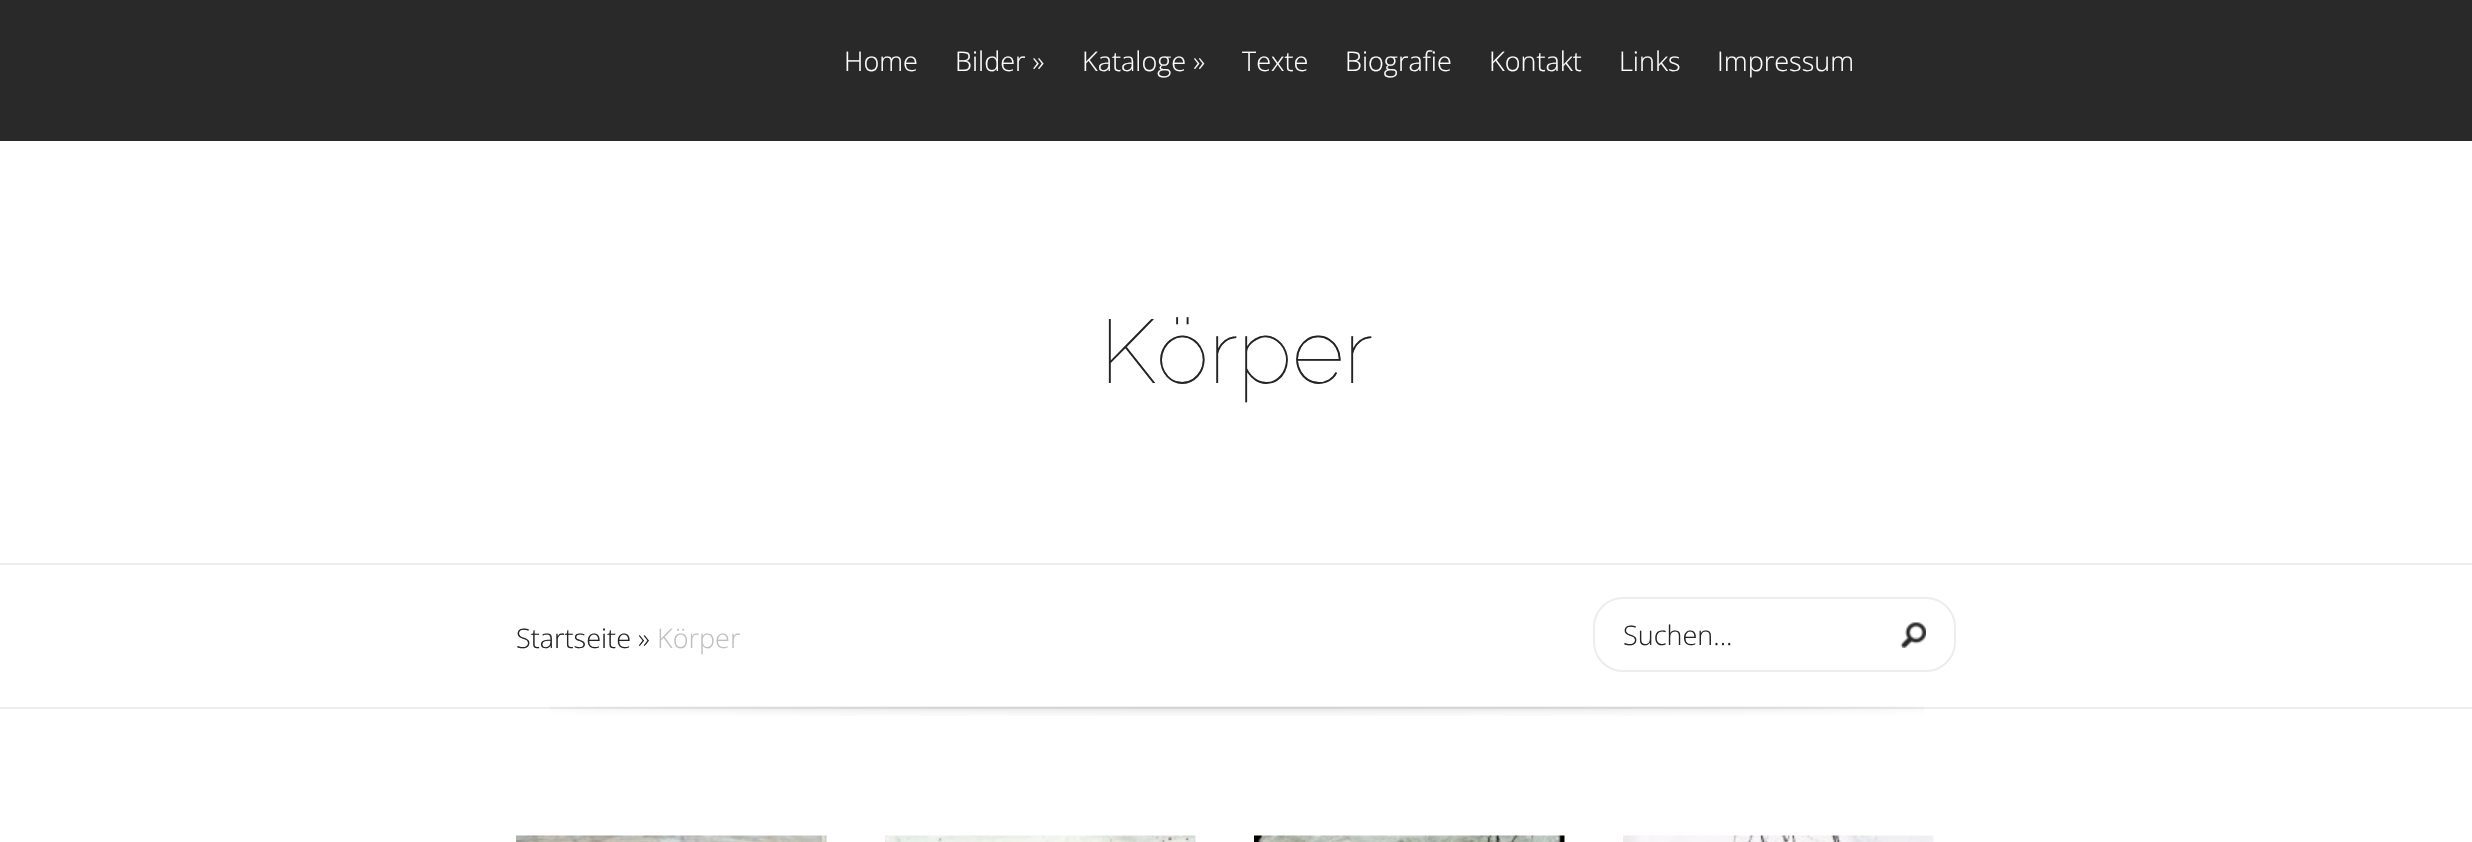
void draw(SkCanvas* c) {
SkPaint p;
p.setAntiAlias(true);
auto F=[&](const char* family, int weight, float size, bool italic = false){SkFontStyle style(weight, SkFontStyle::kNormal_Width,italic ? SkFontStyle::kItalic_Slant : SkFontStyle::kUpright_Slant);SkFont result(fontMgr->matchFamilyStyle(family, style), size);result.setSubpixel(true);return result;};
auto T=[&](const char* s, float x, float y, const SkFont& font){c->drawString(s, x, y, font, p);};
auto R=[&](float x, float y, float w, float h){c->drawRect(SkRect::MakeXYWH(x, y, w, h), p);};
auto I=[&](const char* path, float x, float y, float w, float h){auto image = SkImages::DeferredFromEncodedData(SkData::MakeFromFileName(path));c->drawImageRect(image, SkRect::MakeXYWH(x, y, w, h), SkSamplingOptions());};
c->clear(0xffffffff);
p.setColor(0xff292929);
R(0,0,2472,141);
auto f1 = F("Open Sans",300,27);
p.setColor(0xffffffff);
T("Home",844,71,f1);
T("Bilder »",955,71,f1);
T("Kataloge »",1082,71,f1);
T("Texte",1242,71,f1);
T("Biografie",1345,71,f1);
T("Kontakt",1489,71,f1);
T("Links",1619,71,f1);
T("Impressum",1717,71,f1);
auto f2 = F("Raleway",100,90);
p.setColor(0xff242424);
T("Körper",1100,383,f2);
p.setColor(0xffededed);
R(0,563,2472,2);
R(0,707,2472,2);
p.setColor(0xff242424);
T("Startseite »",516,648,f1);
p.setColor(0xffbfbfbf);
T("Körper",657,648,f1);
p.setStroke(true);
p.setStrokeWidth(2);
p.setColor(0xffededed);
c->drawRoundRect(SkRect::MakeXYWH(1594,598,361,73),29,29,p);
p.setStroke(false);
p.setColor(0xff242424);
T("Suchen...",1623,645,f1);
I("1.png",1900,622,26,26);
I("2.png",550,706,1374,10);
I("3.png",516,835,311,7);
I("4.png",885,835,311,7);
I("5.png",1254,835,311,7);
I("6.png",1623,835,311,7);
}
